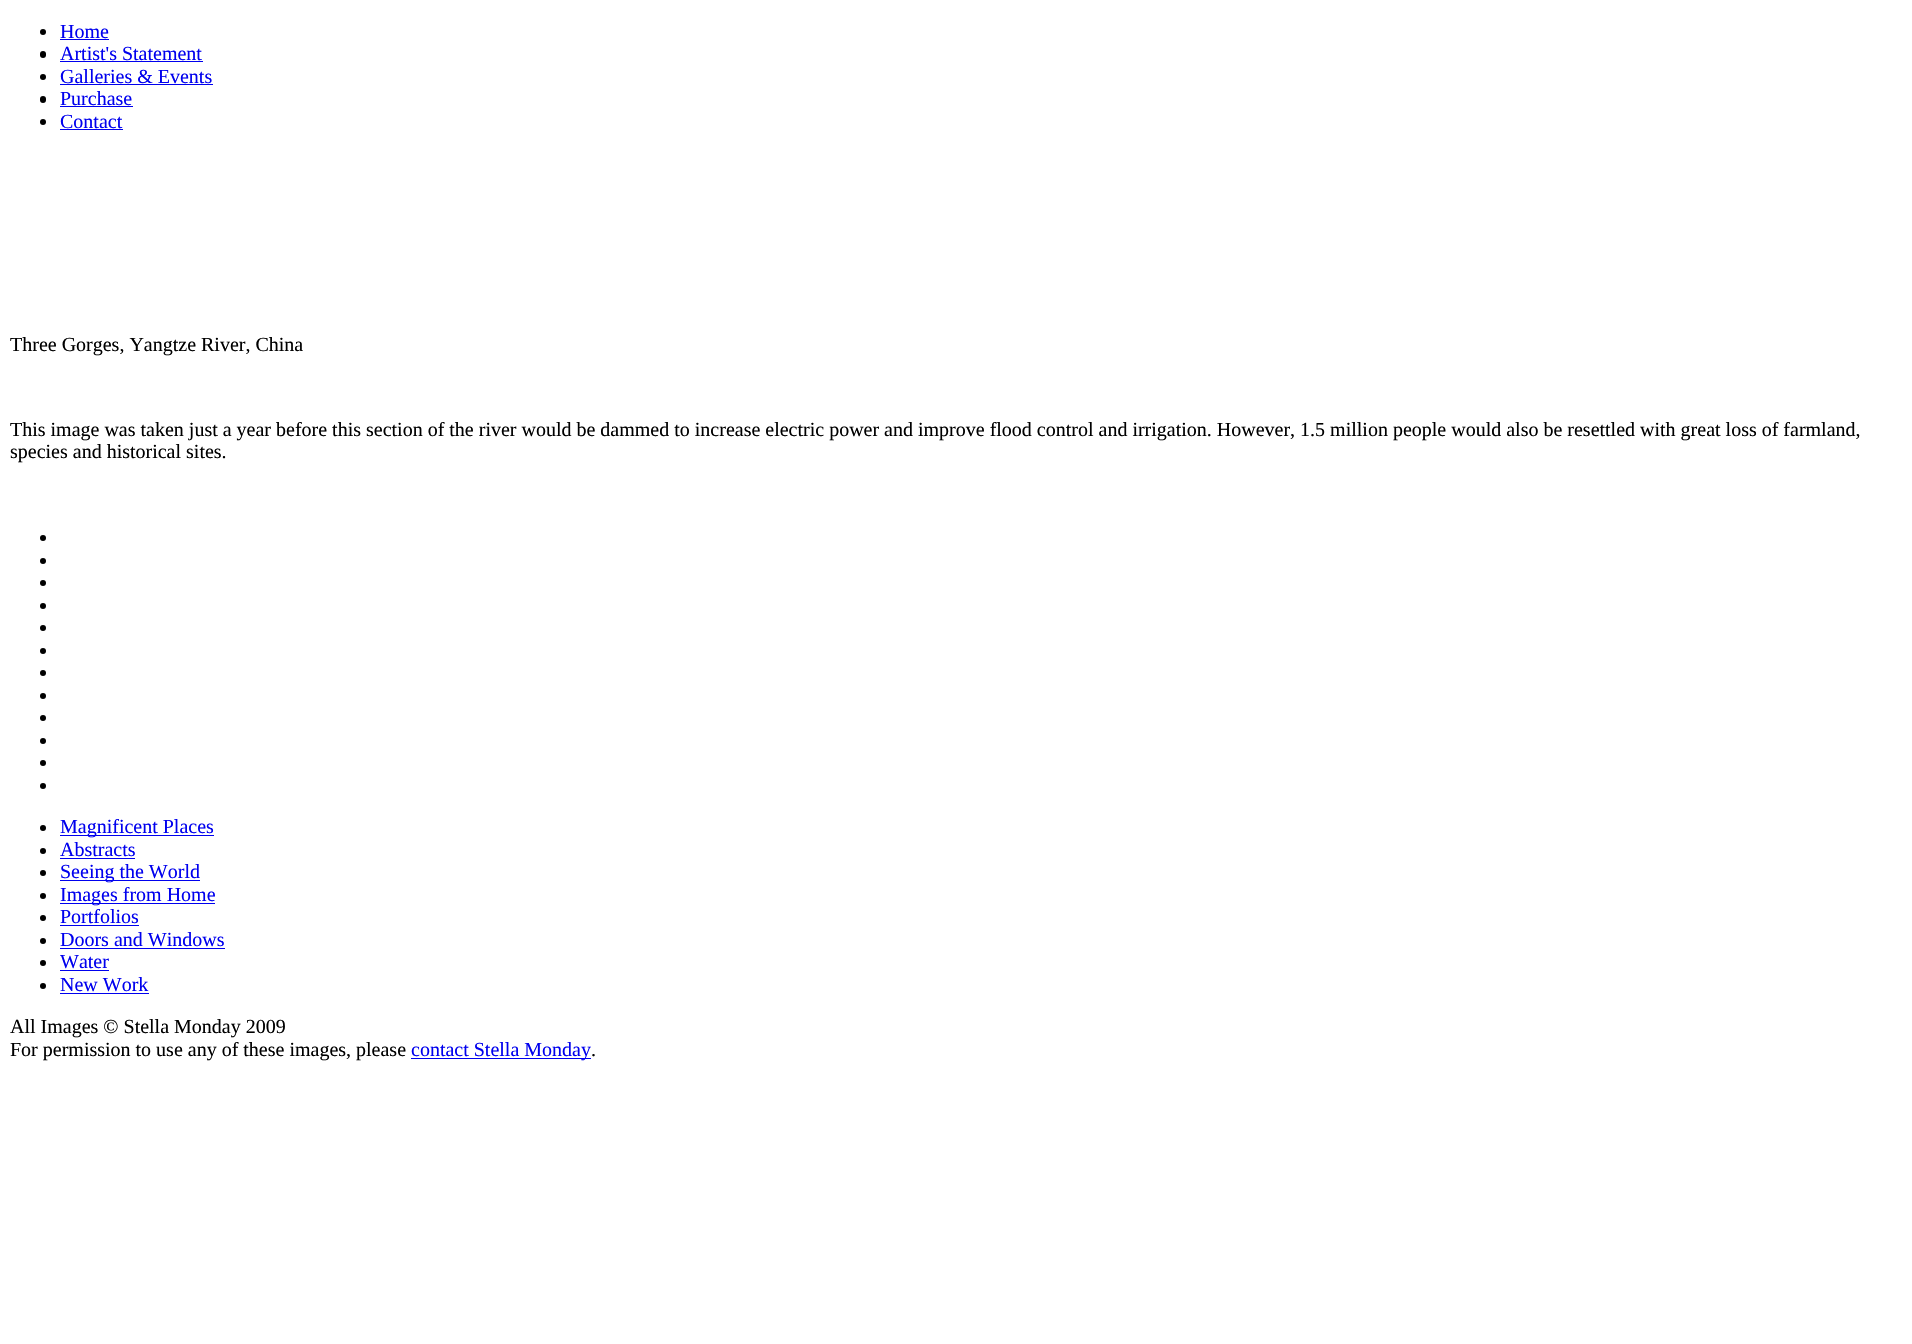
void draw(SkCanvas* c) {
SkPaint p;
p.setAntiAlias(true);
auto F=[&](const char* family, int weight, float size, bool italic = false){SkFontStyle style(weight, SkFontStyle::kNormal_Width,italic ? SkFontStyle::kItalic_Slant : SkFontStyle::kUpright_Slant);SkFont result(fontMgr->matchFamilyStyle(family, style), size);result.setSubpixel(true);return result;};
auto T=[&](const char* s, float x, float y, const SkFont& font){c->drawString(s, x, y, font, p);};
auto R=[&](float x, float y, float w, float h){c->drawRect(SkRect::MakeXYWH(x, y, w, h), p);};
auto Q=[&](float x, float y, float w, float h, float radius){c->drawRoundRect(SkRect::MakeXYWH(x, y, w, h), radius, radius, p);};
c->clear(0xffffffff);
p.setColor(0xff000000);
c->drawCircle(43,32,3,p);
auto f1 = F("Liberation Serif",400,20);
p.setColor(0xff0000ee);
T("Home",60,38,f1);
R(60,39,49,1);
p.setColor(0xff000000);
Q(40,51,6,7,3);
p.setColor(0xff0000ee);
T("Artist's Statement",60,60,f1);
R(60,61,143,1);
p.setColor(0xff000000);
c->drawCircle(43,77,3,p);
p.setColor(0xff0000ee);
T("Galleries & Events",60,83,f1);
R(60,84,153,1);
p.setColor(0xff000000);
Q(40,96,6,7,3);
p.setColor(0xff0000ee);
T("Purchase",60,105,f1);
R(60,106,73,1);
p.setColor(0xff000000);
c->drawCircle(43,122,3,p);
p.setColor(0xff0000ee);
T("Contact",60,128,f1);
R(60,129,63,1);
p.setColor(0xff000000);
T("Three Gorges, Yangtze River, China",10,351,f1);
T("This image was taken just a year before this section of the river would be dammed to increase electric power and improve flood control and irrigation. However, 1.5 million people would also be resettled with great loss of farmland,",10,436,f1);
T("species and historical sites.",10,458,f1);
c->drawCircle(43,538,3,p);
c->drawCircle(43,561,3,p);
c->drawCircle(43,583,3,p);
c->drawCircle(43,606,3,p);
c->drawCircle(43,628,3,p);
c->drawCircle(43,651,3,p);
c->drawCircle(43,673,3,p);
c->drawCircle(43,696,3,p);
c->drawCircle(43,718,3,p);
c->drawCircle(43,741,3,p);
c->drawCircle(43,763,3,p);
c->drawCircle(43,786,3,p);
c->drawCircle(43,828,3,p);
p.setColor(0xff0000ee);
R(60,835,154,1);
T("Magnificent Places",60,833,f1);
p.setColor(0xff000000);
c->drawCircle(43,851,3,p);
p.setColor(0xff0000ee);
T("Abstracts",60,856,f1);
R(60,858,75,1);
p.setColor(0xff000000);
c->drawCircle(43,873,3,p);
p.setColor(0xff0000ee);
R(60,880,140,1);
T("Seeing the World",60,878,f1);
p.setColor(0xff000000);
c->drawCircle(43,896,3,p);
p.setColor(0xff0000ee);
R(60,903,155,1);
T("Images from Home",60,901,f1);
p.setColor(0xff000000);
c->drawCircle(43,918,3,p);
p.setColor(0xff0000ee);
T("Portfolios",60,923,f1);
R(60,925,79,1);
p.setColor(0xff000000);
c->drawCircle(43,941,3,p);
p.setColor(0xff0000ee);
T("Doors and Windows",60,946,f1);
R(60,948,165,1);
p.setColor(0xff000000);
c->drawCircle(43,963,3,p);
p.setColor(0xff0000ee);
T("Water",60,968,f1);
R(60,970,49,1);
p.setColor(0xff000000);
c->drawCircle(43,986,3,p);
p.setColor(0xff0000ee);
T("New Work",60,991,f1);
R(60,993,89,1);
p.setColor(0xff000000);
T("All Images © Stella Monday 2009",10,1033,f1);
T("For permission to use any of these images, please",10,1056,f1);
p.setColor(0xff0000ee);
R(411,1058,180,1);
T("contact Stella Monday",411,1056,f1);
p.setColor(0xff000000);
T(".",591,1056,f1);
}
